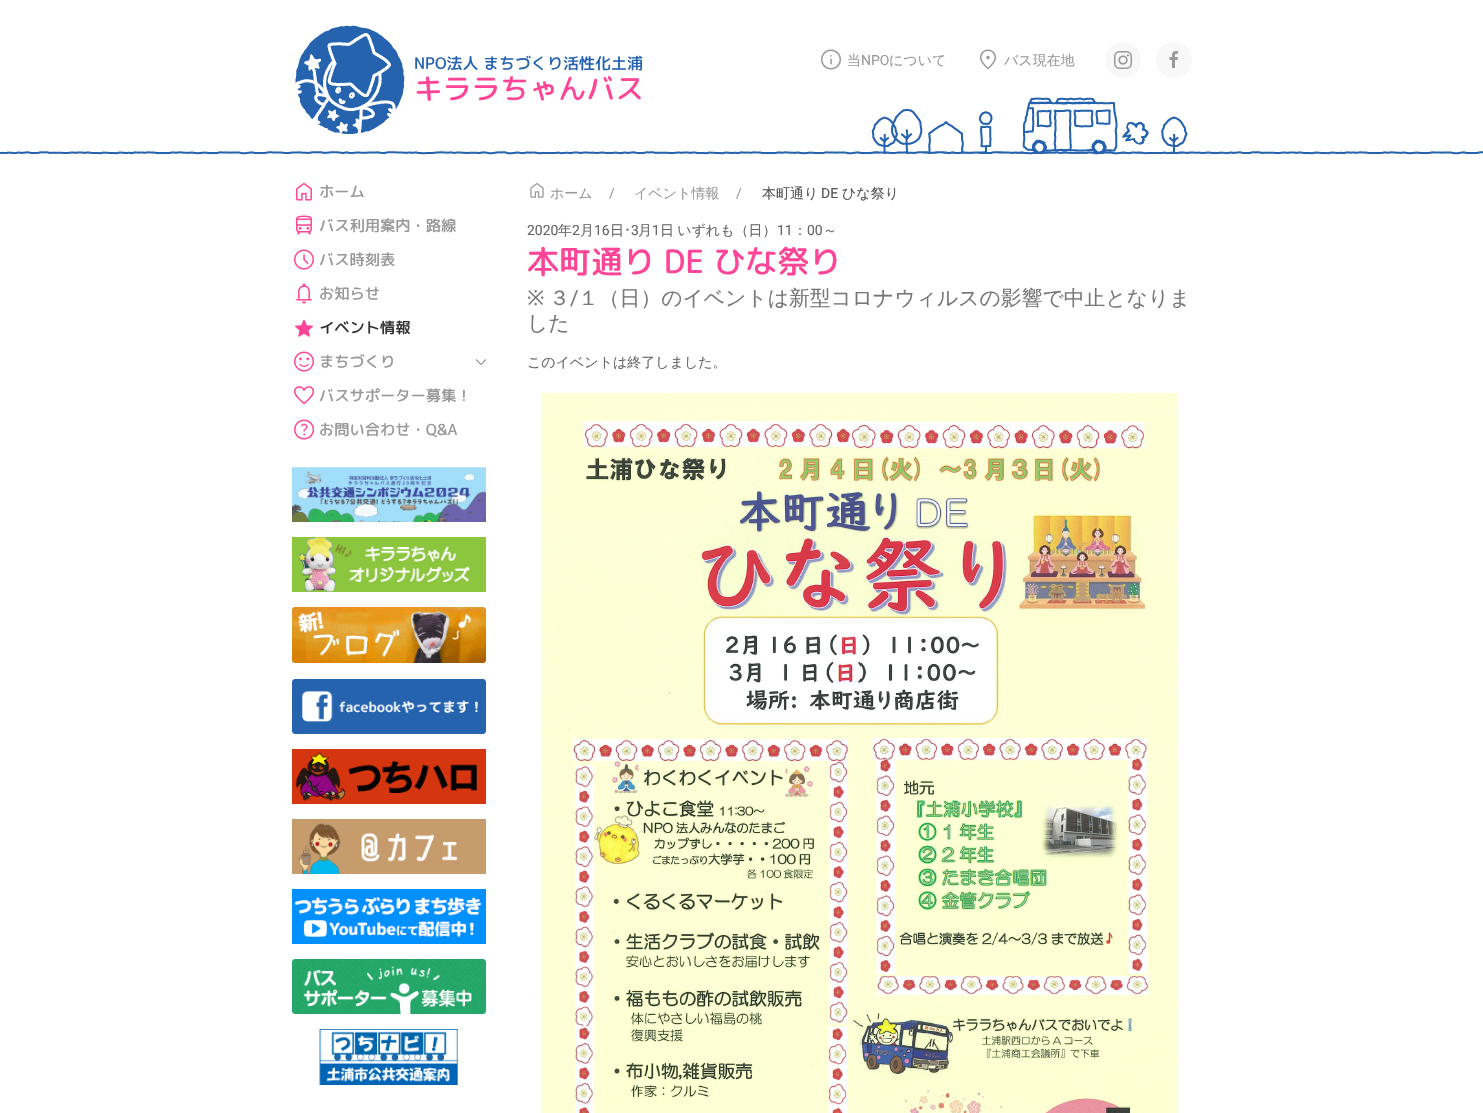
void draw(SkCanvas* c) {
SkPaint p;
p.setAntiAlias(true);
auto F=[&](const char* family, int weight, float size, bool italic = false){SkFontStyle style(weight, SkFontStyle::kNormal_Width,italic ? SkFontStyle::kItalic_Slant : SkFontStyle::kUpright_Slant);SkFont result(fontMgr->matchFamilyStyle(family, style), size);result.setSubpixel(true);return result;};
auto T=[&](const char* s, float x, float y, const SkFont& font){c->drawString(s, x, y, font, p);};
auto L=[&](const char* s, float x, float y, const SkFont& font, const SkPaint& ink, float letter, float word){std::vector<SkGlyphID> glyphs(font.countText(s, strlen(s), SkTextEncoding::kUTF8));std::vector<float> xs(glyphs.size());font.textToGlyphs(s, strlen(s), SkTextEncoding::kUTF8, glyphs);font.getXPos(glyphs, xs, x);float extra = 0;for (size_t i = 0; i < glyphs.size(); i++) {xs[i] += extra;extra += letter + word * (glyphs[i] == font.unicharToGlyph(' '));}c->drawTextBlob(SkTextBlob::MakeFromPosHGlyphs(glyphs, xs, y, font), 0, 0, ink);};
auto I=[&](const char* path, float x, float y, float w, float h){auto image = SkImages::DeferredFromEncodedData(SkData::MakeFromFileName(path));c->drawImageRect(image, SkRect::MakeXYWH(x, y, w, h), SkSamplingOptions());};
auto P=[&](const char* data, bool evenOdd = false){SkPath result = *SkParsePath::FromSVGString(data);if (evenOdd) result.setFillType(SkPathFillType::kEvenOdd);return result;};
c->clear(0xffffffff);
I("1.png",0,151,1483,4);
I("2.png",871,97,321,57);
I("3.png",295,25,110,109);
auto f1 = F("Rounded Mplus 1c",500,16);
p.setColor(0xff2563af);
T("NPO法人 まちづくり活性化土浦",414,69,f1);
auto f2 = F("Rounded Mplus 1c",500,28.75);
p.setColor(0xffff4597);
T("キララちゃんバス",414,99,f2);
I("4.png",821,49,20,21);
auto f3 = F("WenQuanYi Zen Hei",500,14);
p.setColor(0xff999999);
T("当",847,65,f3);
auto f4 = F("Roboto",400,14);
T("NPO",861,65,f4);
T("について",889,65,f3);
I("5.png",980,49,16,21);
T("バス現在地",1004,65,f3);
p.setColor(0xfff8f8f8);
c->drawCircle(1123,60,18,p);
I("6.png",1114,51,18,18);
c->drawCircle(1174,60,18,p);
I("7.png",1169,51,9,17);
I("8.png",295,182,17,19);
auto f5 = F("Rounded Mplus 1c",500,15.25);
p.setColor(0xff999999);
T("ホーム",319,197,f5);
I("9.png",295,215,17,20);
T("バス利用案内・路線",319,231,f5);
I("10.png",294,249,20,21);
T("バス時刻表",319,265,f5);
I("11.png",296,283,16,21);
T("お知らせ",319,299,f5);
I("12.png",295,319,18,18);
p.setColor(0xff333333);
T("イベント情報",319,333,f5);
I("13.png",294,351,20,21);
p.setColor(0xff999999);
T("まちづくり",319,367,f5);
p.setStroke(true);
p.setStrokeWidth(1.1);
c->drawPath(P("M476 359.5l5 5l5-5"),p);
I("14.png",294,386,21,18);
p.setStroke(false);
T("バスサポーター募集！",319,401,f5);
I("15.png",294,419,21,21);
T("お問い合わせ・Q&A",319,435,f5);
I("16.png",292,467,194,55);
I("17.png",292,537,194,55);
I("18.png",292,607,194,56);
I("19.png",292,679,194,55);
I("20.png",292,749,194,55);
I("21.png",292,819,194,55);
I("22.png",292,889,194,55);
I("23.png",292,959,194,55);
I("24.png",319,1029,139,56);
I("25.png",530,183,14,15);
T("ホーム",550,198,f3);
T("/",609,198,f4);
T("イベント情報",634,198,f3);
T("/",736,198,f4);
p.setColor(0xff555555);
T("本町通り",762,198,f3);
T("DE",821,198,f4);
T("ひな祭り",842,198,f3);
p.setColor(0xff666666);
T("2020",527,235,f4);
T("年",558,235,f3);
T("2",572,235,f4);
T("月",580,235,f3);
T("16",594,235,f4);
T("日",610,235,f3);
auto f6 = F("IPAGothic",400,14);
T("･",624,235,f6);
T("3",631,235,f4);
T("月",638,235,f3);
T("1",652,235,f4);
L("日 いずれも（日）",660,235,f3,p,0,-1);
T("11",777,235,f4);
T("：",793,235,f3);
T("00",807,235,f4);
T("～",823,235,f3);
auto f7 = F("Rounded Mplus 1c",500,32);
p.setColor(0xffff4597);
T("本町通り DE ひな祭り",527,273,f7);
auto f8 = F("Noto Sans",400,20.8);
p.setColor(0xff777777);
T("※",527,305,f8);
auto f9 = F("WenQuanYi Zen Hei",500,20.8);
T("３",549,305,f9);
auto f10 = F("Roboto",400,20.8);
T("/",570,305,f10);
T("１（日）のイベントは新型コロナウィルスの影響で中止となりま",578,305,f9);
T("した",527,330,f9);
p.setColor(0xff666666);
T("このイベントは終了しました。",527,367,f3);
I("26.png",541,393,637,720);
}
